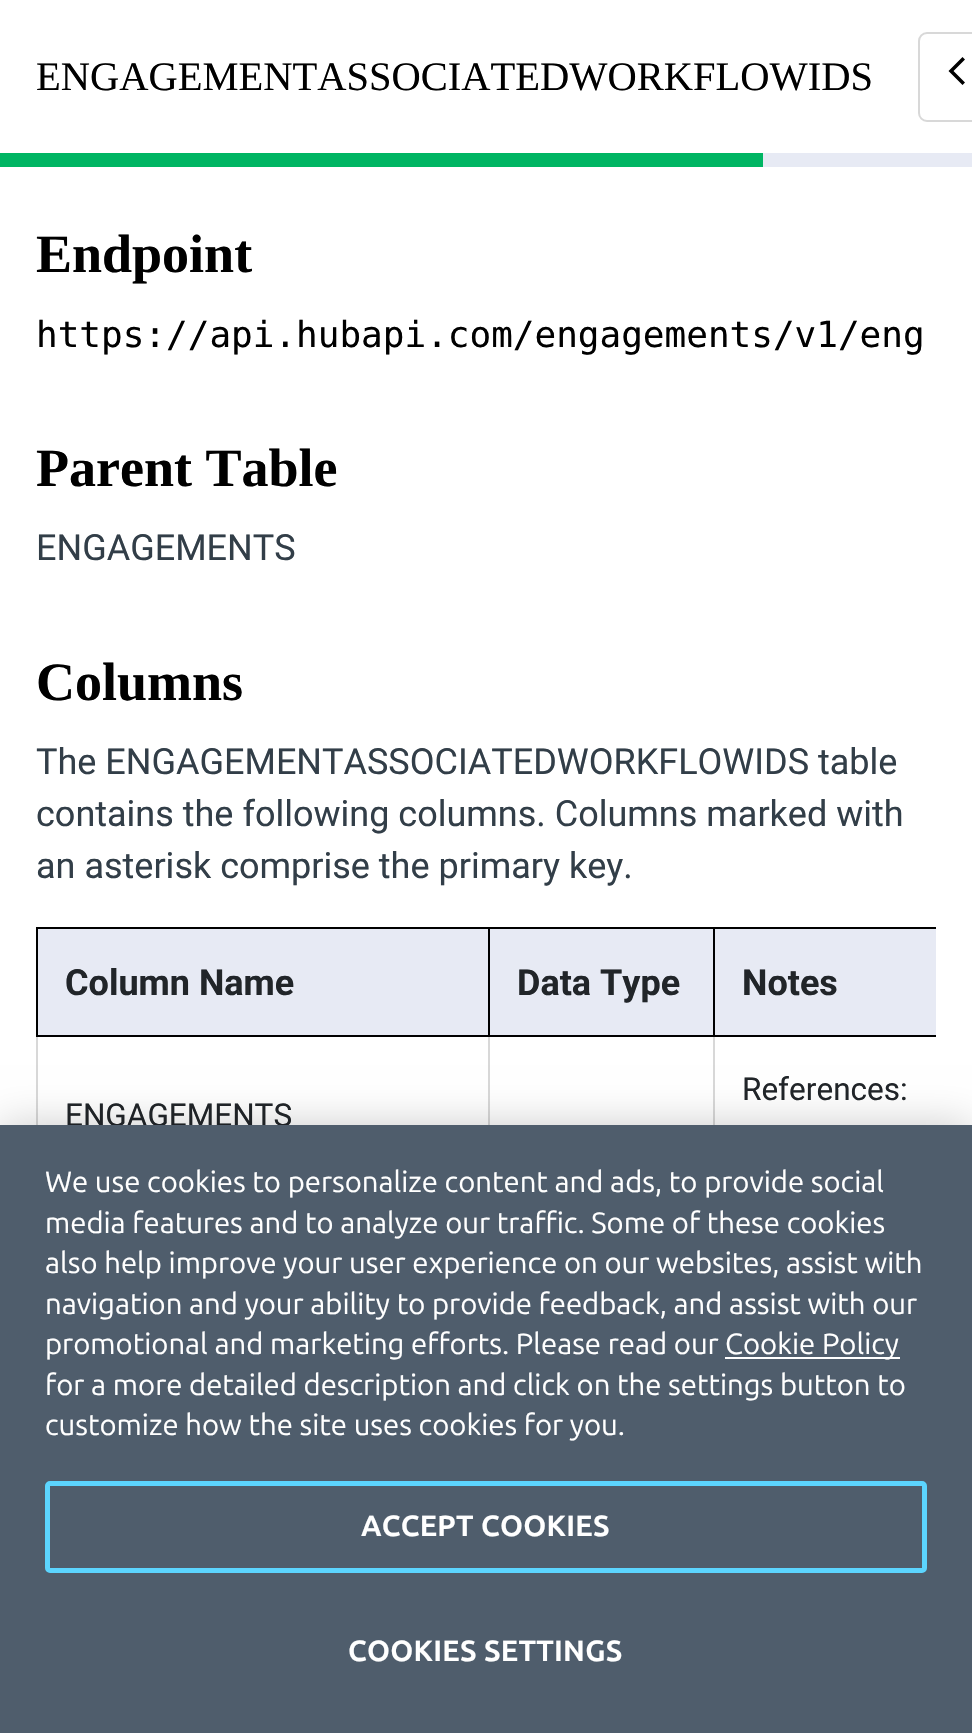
void draw(SkCanvas* c) {
SkPaint p;
p.setAntiAlias(true);
auto F=[&](const char* family, int weight, float size, bool italic = false){SkFontStyle style(weight, SkFontStyle::kNormal_Width,italic ? SkFontStyle::kItalic_Slant : SkFontStyle::kUpright_Slant);SkFont result(fontMgr->matchFamilyStyle(family, style), size);result.setSubpixel(true);return result;};
auto T=[&](const char* s, float x, float y, const SkFont& font){c->drawString(s, x, y, font, p);};
auto L=[&](const char* s, float x, float y, const SkFont& font, const SkPaint& ink, float letter, float word){std::vector<SkGlyphID> glyphs(font.countText(s, strlen(s), SkTextEncoding::kUTF8));std::vector<float> xs(glyphs.size());font.textToGlyphs(s, strlen(s), SkTextEncoding::kUTF8, glyphs);font.getXPos(glyphs, xs, x);float extra = 0;for (size_t i = 0; i < glyphs.size(); i++) {xs[i] += extra;extra += letter + word * (glyphs[i] == font.unicharToGlyph(' '));}c->drawTextBlob(SkTextBlob::MakeFromPosHGlyphs(glyphs, xs, y, font), 0, 0, ink);};
auto R=[&](float x, float y, float w, float h){c->drawRect(SkRect::MakeXYWH(x, y, w, h), p);};
auto P=[&](const char* data, bool evenOdd = false){SkPath result = *SkParsePath::FromSVGString(data);if (evenOdd) result.setFillType(SkPathFillType::kEvenOdd);return result;};
c->clear(0xffffffff);
auto f1 = F("Liberation Serif",400,40.5);
p.setColor(0xff000000);
T("ENGAGEMENTASSOCIATEDWORKFLOWIDS",36,90,f1);
p.setStroke(true);
p.setStrokeWidth(2);
p.setColor(0xffd8d8d8);
c->drawRoundRect(SkRect::MakeXYWH(919,33,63,88),8,8,p);
p.setStroke(false);
p.setColor(0xff000000);
c->drawPath(P("M965 59.5l-2.5-2.5l-14 14l14 14l2.5-2.5l-11.5-11.5z"),p);
p.setColor(0xff00b563);
R(0,153,763,14);
p.setColor(0xffe7eaf4);
R(763,153,209,14);
auto f2 = F("Liberation Serif",700,54);
p.setColor(0xff000000);
T("Endpoint",36,272,f2);
auto f3 = F("DejaVu Sans Mono",400,36);
T("https://api.hubapi.com/engagements/v1/eng",36,347,f3);
T("Parent Table",36,486,f2);
auto f4 = F("Roboto",400,36);
p.setColor(0xff323e48);
T("ENGAGEMENTS",36,560,f4);
p.setColor(0xff000000);
T("Columns",36,700,f2);
p.setColor(0xff323e48);
T("The ENGAGEMENTASSOCIATEDWORKFLOWIDS table",36,774,f4);
T("contains the following columns. Columns marked with",36,826,f4);
T("an asterisk comprise the primary key.",36,878,f4);
p.setColor(0xffe7eaf4);
R(38,929,898,106);
p.setColor(0xff000000);
R(713,927,223,2);
p.setColor(0xffd8d8d8);
R(713,1035,2,90);
p.setColor(0xff000000);
R(713,1035,223,2);
R(713,927,2,110);
R(488,927,228,2);
p.setColor(0xffd8d8d8);
R(488,1035,2,90);
p.setColor(0xff000000);
R(488,1035,228,2);
R(488,927,2,110);
R(36,927,455,2);
p.setColor(0xffd8d8d8);
R(36,1035,2,90);
p.setColor(0xff000000);
R(36,1035,455,2);
R(36,927,2,110);
auto f5 = F("Roboto",700,36);
p.setColor(0xff212529);
T("Column Name",65,995,f5);
T("Data Type",517,995,f5);
T("Notes",742,995,f5);
auto f6 = F("Roboto",400,31.5);
T("References:",742,1100,f6);
T("ENGAGEMENTS",65,1126,f6);
p.setColor(0x33000000);
p.setMaskFilter(SkMaskFilter::MakeBlur(kNormal_SkBlurStyle, 20));
c->drawRect(SkRect::MakeXYWH(0,1125,972,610),p);
p.setMaskFilter(nullptr);
p.setColor(0xff4f5d6c);
R(0,1125,972,608);
auto f7 = F("Ubuntu",400,29.25);
p.setColor(0xffffffff);
T("We use cookies to personalize content and ads, to provide social",45,1192,f7);
T("media features and to analyze our traffic. Some of these cookies",45,1233,f7);
T("also help improve your user experience on our websites, assist with",45,1273,f7);
T("navigation and your ability to provide feedback, and assist with our",45,1314,f7);
T("promotional and marketing efforts. Please read our",45,1354,f7);
R(725,1357,175,2);
T("Cookie Policy",725,1354,f7);
T("for a more detailed description and click on the settings button to",45,1395,f7);
T("customize how the site uses cookies for you.",45,1435,f7);
p.setStroke(true);
p.setStrokeWidth(5);
p.setColor(0xff5cd5ff);
c->drawRoundRect(SkRect::MakeXYWH(47.5,1483.5,877,87),2.5,2.5,p);
auto f8 = F("Ubuntu",700,29.25);
p.setStroke(false);
p.setColor(0xffffffff);
L("ACCEPT COOKIES",361,1536,f8,p,.25,0);
L("COOKIES SETTINGS",348,1661,f8,p,.25,0);
}
